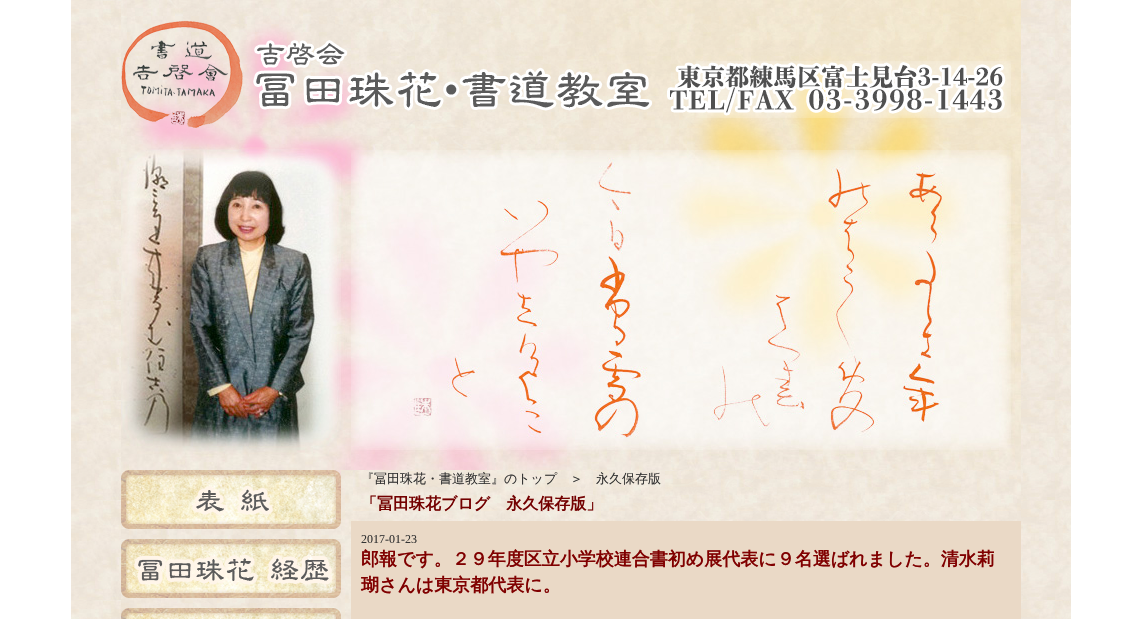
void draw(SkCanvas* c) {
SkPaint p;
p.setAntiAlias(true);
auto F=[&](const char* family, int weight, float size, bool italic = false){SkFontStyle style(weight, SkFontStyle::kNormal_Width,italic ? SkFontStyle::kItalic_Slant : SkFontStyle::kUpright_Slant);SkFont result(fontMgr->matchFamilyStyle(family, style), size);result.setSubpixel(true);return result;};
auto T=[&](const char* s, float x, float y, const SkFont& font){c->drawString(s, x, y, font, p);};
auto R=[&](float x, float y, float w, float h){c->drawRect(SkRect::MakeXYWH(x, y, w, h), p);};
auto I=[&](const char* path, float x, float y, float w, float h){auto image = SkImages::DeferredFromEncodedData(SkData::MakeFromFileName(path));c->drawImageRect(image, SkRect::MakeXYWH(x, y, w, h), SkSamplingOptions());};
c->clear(0xffffffff);
I("1.png",71,0,1000,619);
I("2.png",121,0,535,150);
I("3.png",656,0,365,150);
I("4.png",121,150,230,320);
I("5.png",351,150,670,320);
I("6.png",121,470,900,149);
I("7.png",121,470,220,59);
I("8.png",121,539,220,59);
I("9.png",121,608,220,11);
auto f1 = F("WenQuanYi Zen Hei",500,13);
p.setColor(0xff333333);
T("『冨田珠花・書道教室』のトップ",361,483,f1);
T("＞　永久保存版",570,483,f1);
auto f2 = F("WenQuanYi Zen Hei",700,16);
p.setColor(0xff730000);
T("「冨田珠花ブログ　永久保存版」",361,509,f2);
p.setColor(0xffead9c6);
R(351,521,670,98);
auto f3 = F("Liberation Serif",400,12);
p.setColor(0xff333333);
T("2017-01-23",361,543,f3);
auto f4 = F("WenQuanYi Zen Hei",700,18);
p.setColor(0xff800000);
T("郎報です。２９年度区立小学校連合書初め展代表に９名選ばれました。清水莉",361,565,f4);
T("瑚さんは東京都代表に。",361,591,f4);
}
